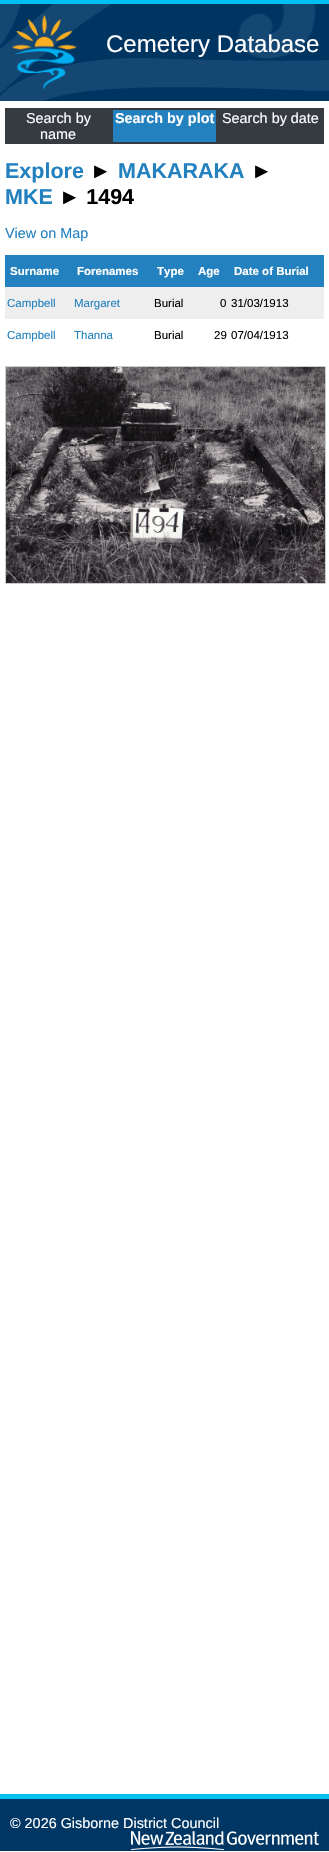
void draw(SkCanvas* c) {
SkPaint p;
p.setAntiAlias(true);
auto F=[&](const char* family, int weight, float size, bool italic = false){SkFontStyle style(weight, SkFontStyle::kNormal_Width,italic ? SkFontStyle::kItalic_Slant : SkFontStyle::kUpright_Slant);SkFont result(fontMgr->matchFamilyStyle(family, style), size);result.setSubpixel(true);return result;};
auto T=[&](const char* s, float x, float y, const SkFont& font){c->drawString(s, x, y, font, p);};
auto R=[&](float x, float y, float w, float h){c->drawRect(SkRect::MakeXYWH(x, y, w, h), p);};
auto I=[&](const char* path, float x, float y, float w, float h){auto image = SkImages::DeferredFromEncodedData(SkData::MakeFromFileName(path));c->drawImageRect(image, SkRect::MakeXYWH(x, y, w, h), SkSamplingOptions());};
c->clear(0xffffffff);
I("1.png",0,4,329,97);
p.setColor(0xff00c0f3);
R(0,0,329,4);
I("2.png",12,15,65,75);
auto f1 = F("Liberation Sans",400,24);
p.setColor(0xffffffff);
T("Cemetery Database",106,52,f1);
p.setColor(0xff353b41);
R(5,108,319,36);
auto f2 = F("Liberation Sans",400,14.4);
p.setColor(0xffffffff);
T("Search by",26,123,f2);
T("name",40,139,f2);
p.setColor(0xff2281be);
R(113,110,103,32);
auto f3 = F("Liberation Sans",700,14.4);
p.setColor(0xffffffff);
T("Search by plot",115,123,f3);
T("Search by date",222,123,f2);
auto f4 = F("Liberation Sans",700,21.5);
p.setColor(0xff2281be);
T("Explore",5,178,f4);
p.setColor(0xff000000);
T("►",90,178,f4);
p.setColor(0xff2281be);
T("MAKARAKA",118,178,f4);
p.setColor(0xff000000);
T("►",251,178,f4);
p.setColor(0xff2281be);
T("MKE",5,204,f4);
p.setColor(0xff000000);
T("► 1494",59,204,f4);
p.setColor(0xff2281be);
T("View on Map",5,238,f2);
R(5,255,319,32);
auto f5 = F("Liberation Sans",700,11.5);
p.setColor(0xffffffff);
T("Surname",10,275,f5);
T("Forenames",77,275,f5);
T("Type",157,275,f5);
T("Age",198,275,f5);
T("Date of Burial",234,275,f5);
p.setColor(0xffeeeeee);
R(5,287,319,32);
auto f6 = F("Liberation Sans",400,11.5);
p.setColor(0xff2281be);
T("Campbell",7,307,f6);
T("Margaret",74,307,f6);
p.setColor(0xff000000);
T("Burial",154,307,f6);
T("0",220,307,f6);
T("31/03/1913",231,307,f6);
p.setColor(0xff2281be);
T("Campbell",7,339,f6);
T("Thanna",74,339,f6);
p.setColor(0xff000000);
T("Burial",154,339,f6);
T("29",214,339,f6);
T("07/04/1913",231,339,f6);
p.setStroke(true);
p.setStrokeWidth(1);
p.setColor(0xffcccccc);
c->drawRect(SkRect::MakeXYWH(5.5,366.5,320,217),p);
I("3.png",6,367,319,216);
p.setStroke(false);
p.setColor(0xff003664);
R(0,1799,329,52);
p.setColor(0xff00c0f3);
R(0,1794,329,5);
p.setColor(0xffffffff);
T("© 2026 Gisborne District Council",10,1828,f2);
I("4.png",131,1831,188,20);
}
